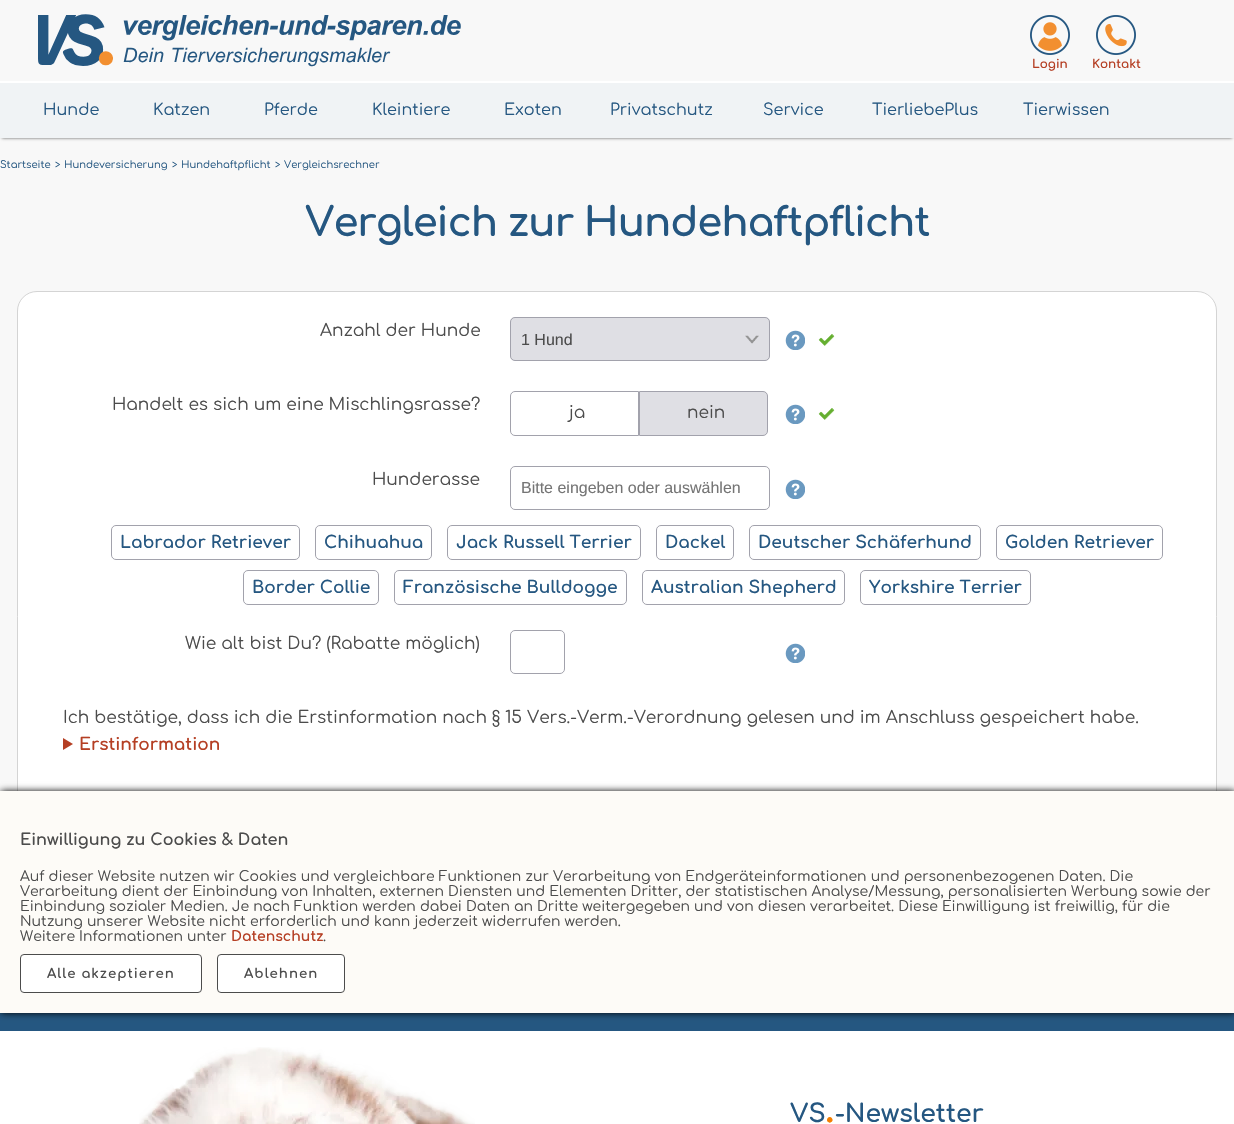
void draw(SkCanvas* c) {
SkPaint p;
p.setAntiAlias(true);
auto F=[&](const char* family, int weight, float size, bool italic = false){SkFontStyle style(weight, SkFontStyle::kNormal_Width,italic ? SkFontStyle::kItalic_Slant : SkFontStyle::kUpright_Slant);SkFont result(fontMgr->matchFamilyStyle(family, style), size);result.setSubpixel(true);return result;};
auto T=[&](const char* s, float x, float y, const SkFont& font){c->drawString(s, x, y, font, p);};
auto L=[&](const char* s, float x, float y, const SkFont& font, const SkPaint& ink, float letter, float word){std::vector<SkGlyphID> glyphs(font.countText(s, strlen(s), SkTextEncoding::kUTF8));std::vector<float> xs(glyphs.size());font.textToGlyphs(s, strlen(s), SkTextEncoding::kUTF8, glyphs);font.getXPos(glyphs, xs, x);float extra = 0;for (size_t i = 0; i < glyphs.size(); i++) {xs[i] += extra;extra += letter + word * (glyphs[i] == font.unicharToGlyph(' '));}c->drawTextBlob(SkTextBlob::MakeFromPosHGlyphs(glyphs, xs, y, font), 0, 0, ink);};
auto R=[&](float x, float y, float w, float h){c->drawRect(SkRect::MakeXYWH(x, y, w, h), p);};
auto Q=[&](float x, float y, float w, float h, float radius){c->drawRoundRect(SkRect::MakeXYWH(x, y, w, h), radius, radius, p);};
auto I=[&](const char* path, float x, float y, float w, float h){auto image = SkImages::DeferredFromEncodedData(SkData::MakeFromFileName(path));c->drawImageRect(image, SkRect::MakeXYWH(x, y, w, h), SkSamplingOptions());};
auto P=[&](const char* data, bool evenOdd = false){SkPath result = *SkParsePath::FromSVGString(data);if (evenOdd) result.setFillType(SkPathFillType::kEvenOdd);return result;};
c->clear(0xfff8f8f8);
I("1.png",38,14,423,53);
I("2.png",1030,15,40,40);
auto f1 = F("Comfortaa",700,12);
p.setColor(0xffb53f24);
T("Login",1032,68,f1);
I("3.png",1096,15,40,40);
T("Kontakt",1092,68,f1);
p.setColor(0xa3000000);
p.setMaskFilter(SkMaskFilter::MakeBlur(kNormal_SkBlurStyle, 1.5));
c->drawRect(SkRect::MakeXYWH(2,85,1230,53),p);
p.setMaskFilter(nullptr);
p.setColor(0xfff0f3f5);
R(0,83,1234,55);
p.setColor(0xffffffff);
R(0,81,1234,2);
auto f2 = F("Comfortaa",400,16);
p.setColor(0xff255781);
T("Hunde",43,115,f2);
T("Katzen",153,115,f2);
T("Pferde",264,115,f2);
T("Kleintiere",372,115,f2);
T("Exoten",504,115,f2);
T("Privatschutz",610,115,f2);
T("Service",763,115,f2);
T("TierliebePlus",872,115,f2);
T("Tierwissen",1023,115,f2);
p.setColor(0xffffffff);
c->drawRoundRect(SkRect::MakeXYWH(17.5,291.5,1199,650),19.5,19.5,p);
p.setStroke(true);
p.setStrokeWidth(1);
p.setColor(0xffd4d4d4);
c->drawRoundRect(SkRect::MakeXYWH(17.5,291.5,1199,650),19.5,19.5,p);
p.setStroke(false);
p.setColor(0xff255781);
R(0,1013,1234,18);
p.setColor(0xff000000);
p.setMaskFilter(SkMaskFilter::MakeBlur(kNormal_SkBlurStyle, 3.5));
c->drawRect(SkRect::MakeXYWH(1,791,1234,222),p);
p.setMaskFilter(nullptr);
p.setColor(0xfffdfbf7);
R(0,791,1234,222);
auto f3 = F("Comfortaa",700,16);
p.setColor(0xff4c4c4c);
T("Einwilligung zu Cookies & Daten",20,845,f3);
auto f4 = F("Comfortaa",400,14);
T("Auf dieser Website nutzen wir Cookies und vergleichbare Funktionen zur Verarbeitung von Endgeräteinformationen und personenbezogenen Daten. Die",20,881,f4);
T("Verarbeitung dient der Einbindung von Inhalten, externen Diensten und Elementen Dritter, der statistischen Analyse/Messung, personalisierten Werbung sowie der",20,896,f4);
T("Einbindung sozialer Medien. Je nach Funktion werden dabei Daten an Dritte weitergegeben und von diesen verarbeitet. Diese Einwilligung ist freiwillig, für die",20,911,f4);
T("Nutzung unserer Website nicht erforderlich und kann jederzeit widerrufen werden.",20,926,f4);
T("Weitere Informationen unter",20,941,f4);
auto f5 = F("Comfortaa",700,14);
p.setColor(0xffb53f24);
T("Datenschutz",231,941,f5);
p.setColor(0xff4c4c4c);
T(".",323,941,f4);
p.setColor(0xffffffff);
c->drawRoundRect(SkRect::MakeXYWH(20.5,954.5,181,38),3.5,3.5,p);
p.setStroke(true);
p.setColor(0xff4c4c4c);
c->drawRoundRect(SkRect::MakeXYWH(20.5,954.5,181,38),3.5,3.5,p);
auto f6 = F("Comfortaa",700,13.25);
p.setStroke(false);
L("Alle akzeptieren",47,978,f6,p,1,0);
p.setColor(0xffffffff);
c->drawRoundRect(SkRect::MakeXYWH(217.5,954.5,127,38),3.5,3.5,p);
p.setStroke(true);
p.setColor(0xff4c4c4c);
c->drawRoundRect(SkRect::MakeXYWH(217.5,954.5,127,38),3.5,3.5,p);
p.setStroke(false);
L("Ablehnen",244,978,f6,p,1,0);
auto f7 = F("Comfortaa",400,10);
p.setColor(0xff255781);
T("Startseite",0,168,f7);
T(">",55,168,f7);
T("Hundeversicherung",64,168,f7);
T(">",172,168,f7);
T("Hundehaftpflicht",181,168,f7);
T(">",275,168,f7);
T("Vergleichsrechner",284,168,f7);
auto f8 = F("Comfortaa",700,40);
L("Vergleich zur Hundehaftpflicht",305,236,f8,p,-1,0);
auto f9 = F("Comfortaa",400,17);
p.setColor(0xff4c4c4c);
T("Anzahl der Hunde",320,336,f9);
I("4.png",818,334,17,12);
p.setColor(0xffdfdfe4);
Q(510,317,260,44,5);
I("5.png",745,335,14,9);
p.setStroke(true);
p.setColor(0xffa2a2ac);
c->drawRoundRect(SkRect::MakeXYWH(510.5,317.5,259,43),4.5,4.5,p);
auto f10 = F("Liberation Sans",400,16);
p.setStroke(false);
p.setColor(0xff4c4c4c);
T("1 Hund",521,345,f10);
I("6.png",785,330,20,20);
T("Handelt es sich um eine Mischlingsrasse?",112,410,f9);
I("4.png",818,408,17,12);
p.setStroke(true);
p.setColor(0xffa2a2ac);
c->drawPath(P("M515 391.5h123.5v44h-123.5c-2.5 0-4.5-2-4.5-4.5v-35c0-2.5 2-4.5 4.5-4.5z"),p);
p.setStroke(false);
p.setColor(0xff4c4c4c);
T("ja",569,418,f9);
p.setColor(0xffdfdfe4);
c->drawPath(P("M639.5 391.5h123.5c2.5 0 4.5 2 4.5 4.5v35c0 2.5-2 4.5-4.5 4.5h-123.5z"),p);
p.setStroke(true);
p.setColor(0xffa2a2ac);
c->drawPath(P("M639.5 391.5h123.5c2.5 0 4.5 2 4.5 4.5v35c0 2.5-2 4.5-4.5 4.5h-123.5z"),p);
p.setStroke(false);
p.setColor(0xff4c4c4c);
T("nein",687,418,f9);
I("6.png",785,404,20,20);
T("Hunderasse",372,485,f9);
p.setStroke(true);
p.setColor(0xffa2a2ac);
c->drawRoundRect(SkRect::MakeXYWH(510.5,466.5,259,43),4.5,4.5,p);
p.setStroke(false);
p.setColor(0xff757575);
T("Bitte eingeben oder auswählen",521,493,f10);
I("6.png",785,479,20,20);
p.setStroke(true);
p.setColor(0xffa2a2ac);
c->drawRoundRect(SkRect::MakeXYWH(111.5,525.5,188,34),4.5,4.5,p);
auto f11 = F("Comfortaa",700,17);
p.setStroke(false);
p.setColor(0xff255781);
T("Labrador Retriever",120,548,f11);
p.setStroke(true);
p.setColor(0xffa2a2ac);
c->drawRoundRect(SkRect::MakeXYWH(315.5,525.5,116,34),4.5,4.5,p);
p.setStroke(false);
p.setColor(0xff255781);
T("Chihuahua",324,548,f11);
p.setStroke(true);
p.setColor(0xffa2a2ac);
c->drawRoundRect(SkRect::MakeXYWH(447.5,525.5,193,34),4.5,4.5,p);
p.setStroke(false);
p.setColor(0xff255781);
T("Jack Russell Terrier",456,548,f11);
p.setStroke(true);
p.setColor(0xffa2a2ac);
c->drawRoundRect(SkRect::MakeXYWH(656.5,525.5,77,34),4.5,4.5,p);
p.setStroke(false);
p.setColor(0xff255781);
T("Dackel",665,548,f11);
p.setStroke(true);
p.setColor(0xffa2a2ac);
c->drawRoundRect(SkRect::MakeXYWH(749.5,525.5,231,34),4.5,4.5,p);
p.setStroke(false);
p.setColor(0xff255781);
T("Deutscher Schäferhund",758,548,f11);
p.setStroke(true);
p.setColor(0xffa2a2ac);
c->drawRoundRect(SkRect::MakeXYWH(996.5,525.5,166,34),4.5,4.5,p);
p.setStroke(false);
p.setColor(0xff255781);
T("Golden Retriever",1005,548,f11);
p.setStroke(true);
p.setColor(0xffa2a2ac);
c->drawRoundRect(SkRect::MakeXYWH(243.5,570.5,135,34),4.5,4.5,p);
p.setStroke(false);
p.setColor(0xff255781);
T("Border Collie",252,593,f11);
p.setStroke(true);
p.setColor(0xffa2a2ac);
c->drawRoundRect(SkRect::MakeXYWH(394.5,570.5,232,34),4.5,4.5,p);
p.setStroke(false);
p.setColor(0xff255781);
T("Französische Bulldogge",403,593,f11);
p.setStroke(true);
p.setColor(0xffa2a2ac);
c->drawRoundRect(SkRect::MakeXYWH(642.5,570.5,202,34),4.5,4.5,p);
p.setStroke(false);
p.setColor(0xff255781);
T("Australian Shepherd",651,593,f11);
p.setStroke(true);
p.setColor(0xffa2a2ac);
c->drawRoundRect(SkRect::MakeXYWH(860.5,570.5,170,34),4.5,4.5,p);
p.setStroke(false);
p.setColor(0xff255781);
T("Yorkshire Terrier",869,593,f11);
p.setColor(0xff4c4c4c);
T("Wie alt bist Du? (Rabatte möglich)",185,649,f9);
p.setStroke(true);
p.setColor(0xffa2a2ac);
c->drawRoundRect(SkRect::MakeXYWH(510.5,630.5,54,43),4.5,4.5,p);
I("6.png",785,643,20,20);
p.setStroke(false);
p.setColor(0xff4c4c4c);
T("Ich bestätige, dass ich die Erstinformation nach § 15 Vers.-Verm.-Verordnung gelesen und im Anschluss gespeichert habe.",63,723,f9);
p.setColor(0xffb53f24);
c->drawPath(P("M63 750v-12l10 6z"),p);
T("Erstinformation",79,750,f11);
p.setColor(0xffffffff);
R(0,1031,1234,93);
I("7.png",139,1047,336,77);
auto f12 = F("Comfortaa",700,25);
p.setColor(0xff255781);
T("VS",790,1122,f12);
p.setColor(0xfff37e00);
T(".",825,1122,f8);
p.setColor(0xff255781);
T("-Newsletter",835,1122,f12);
}
